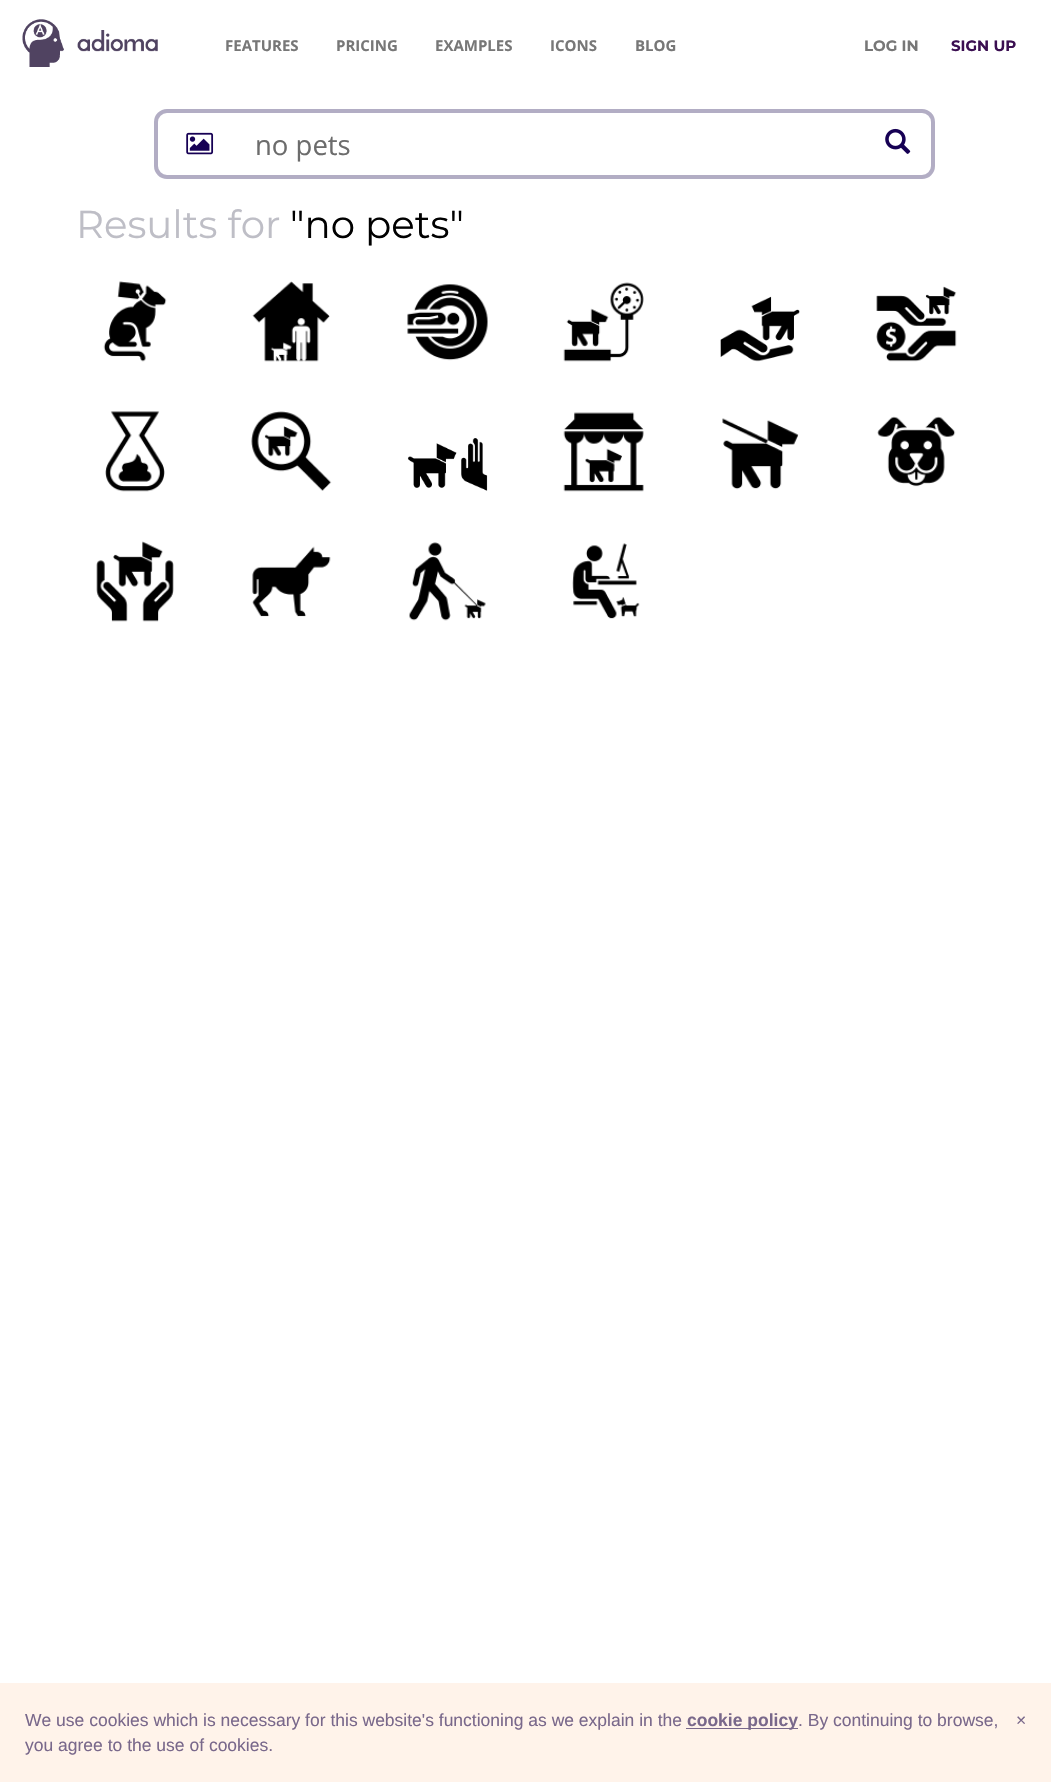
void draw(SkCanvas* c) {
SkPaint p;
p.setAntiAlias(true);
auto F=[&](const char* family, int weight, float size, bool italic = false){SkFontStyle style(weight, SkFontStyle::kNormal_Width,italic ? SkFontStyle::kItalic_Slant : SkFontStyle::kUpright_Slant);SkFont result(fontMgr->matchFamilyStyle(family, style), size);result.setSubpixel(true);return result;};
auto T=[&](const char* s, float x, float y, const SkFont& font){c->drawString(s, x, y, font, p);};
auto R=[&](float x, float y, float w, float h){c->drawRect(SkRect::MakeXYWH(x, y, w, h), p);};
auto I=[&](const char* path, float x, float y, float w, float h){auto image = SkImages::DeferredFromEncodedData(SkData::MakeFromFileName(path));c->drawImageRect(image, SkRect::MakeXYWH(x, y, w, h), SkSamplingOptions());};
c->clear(0xffffffff);
I("1.png",22,19,136,48);
auto f1 = F("Open Sans",700,15);
p.setColor(0xff777777);
T("FEATURES",225,51,f1);
T("PRICING",336,51,f1);
T("EXAMPLES",435,51,f1);
T("ICONS",550,51,f1);
T("BLOG",635,51,f1);
auto f2 = F("Montserrat",700,15);
T("LOG IN",864,51,f2);
p.setColor(0xff3b0f51);
T("SIGN UP",951,51,f2);
p.setStroke(true);
p.setStrokeWidth(4);
p.setColor(0xffb2adc4);
c->drawRoundRect(SkRect::MakeXYWH(156,111,777,66),11,11,p);
I("2.png",186,132,28,23);
auto f3 = F("Open Sans",400,27.5);
p.setStroke(false);
p.setColor(0xff6c6c6c);
T("no pets",255,155,f3);
I("3.png",885,128,26,26);
auto f4 = F("Montserrat",400,38.75);
p.setColor(0xffbebec6);
T("Results for",76,238,f4);
p.setColor(0xff000000);
T("\"no pets\"",290,238,f4);
I("4.png",103,281,64,81);
I("5.png",252,281,78,81);
I("6.png",407,284,81,77);
I("7.png",563,282,81,80);
I("8.png",720,296,80,66);
I("9.png",876,286,81,76);
I("10.png",105,411,60,81);
I("11.png",251,411,81,80);
I("12.png",407,438,81,53);
I("13.png",563,412,81,80);
I("14.png",722,418,77,72);
I("15.png",877,416,79,71);
I("16.png",96,541,78,81);
I("17.png",252,546,79,71);
I("18.png",409,542,77,79);
I("19.png",572,543,68,76);
p.setColor(0xfffff3ea);
R(0,1683,1051,99);
auto f5 = F("Liberation Sans",400,17.5);
p.setColor(0xff79688b);
T("We use cookies which is necessary for this website's functioning as we explain in the",25,1726,f5);
R(686,1728,112,1);
auto f6 = F("Liberation Sans",700,17.5);
T("cookie policy",687,1726,f6);
T(". By continuing to browse,",798,1726,f5);
T("you agree to the use of cookies.",25,1751,f5);
T("×",1016,1726,f5);
}
